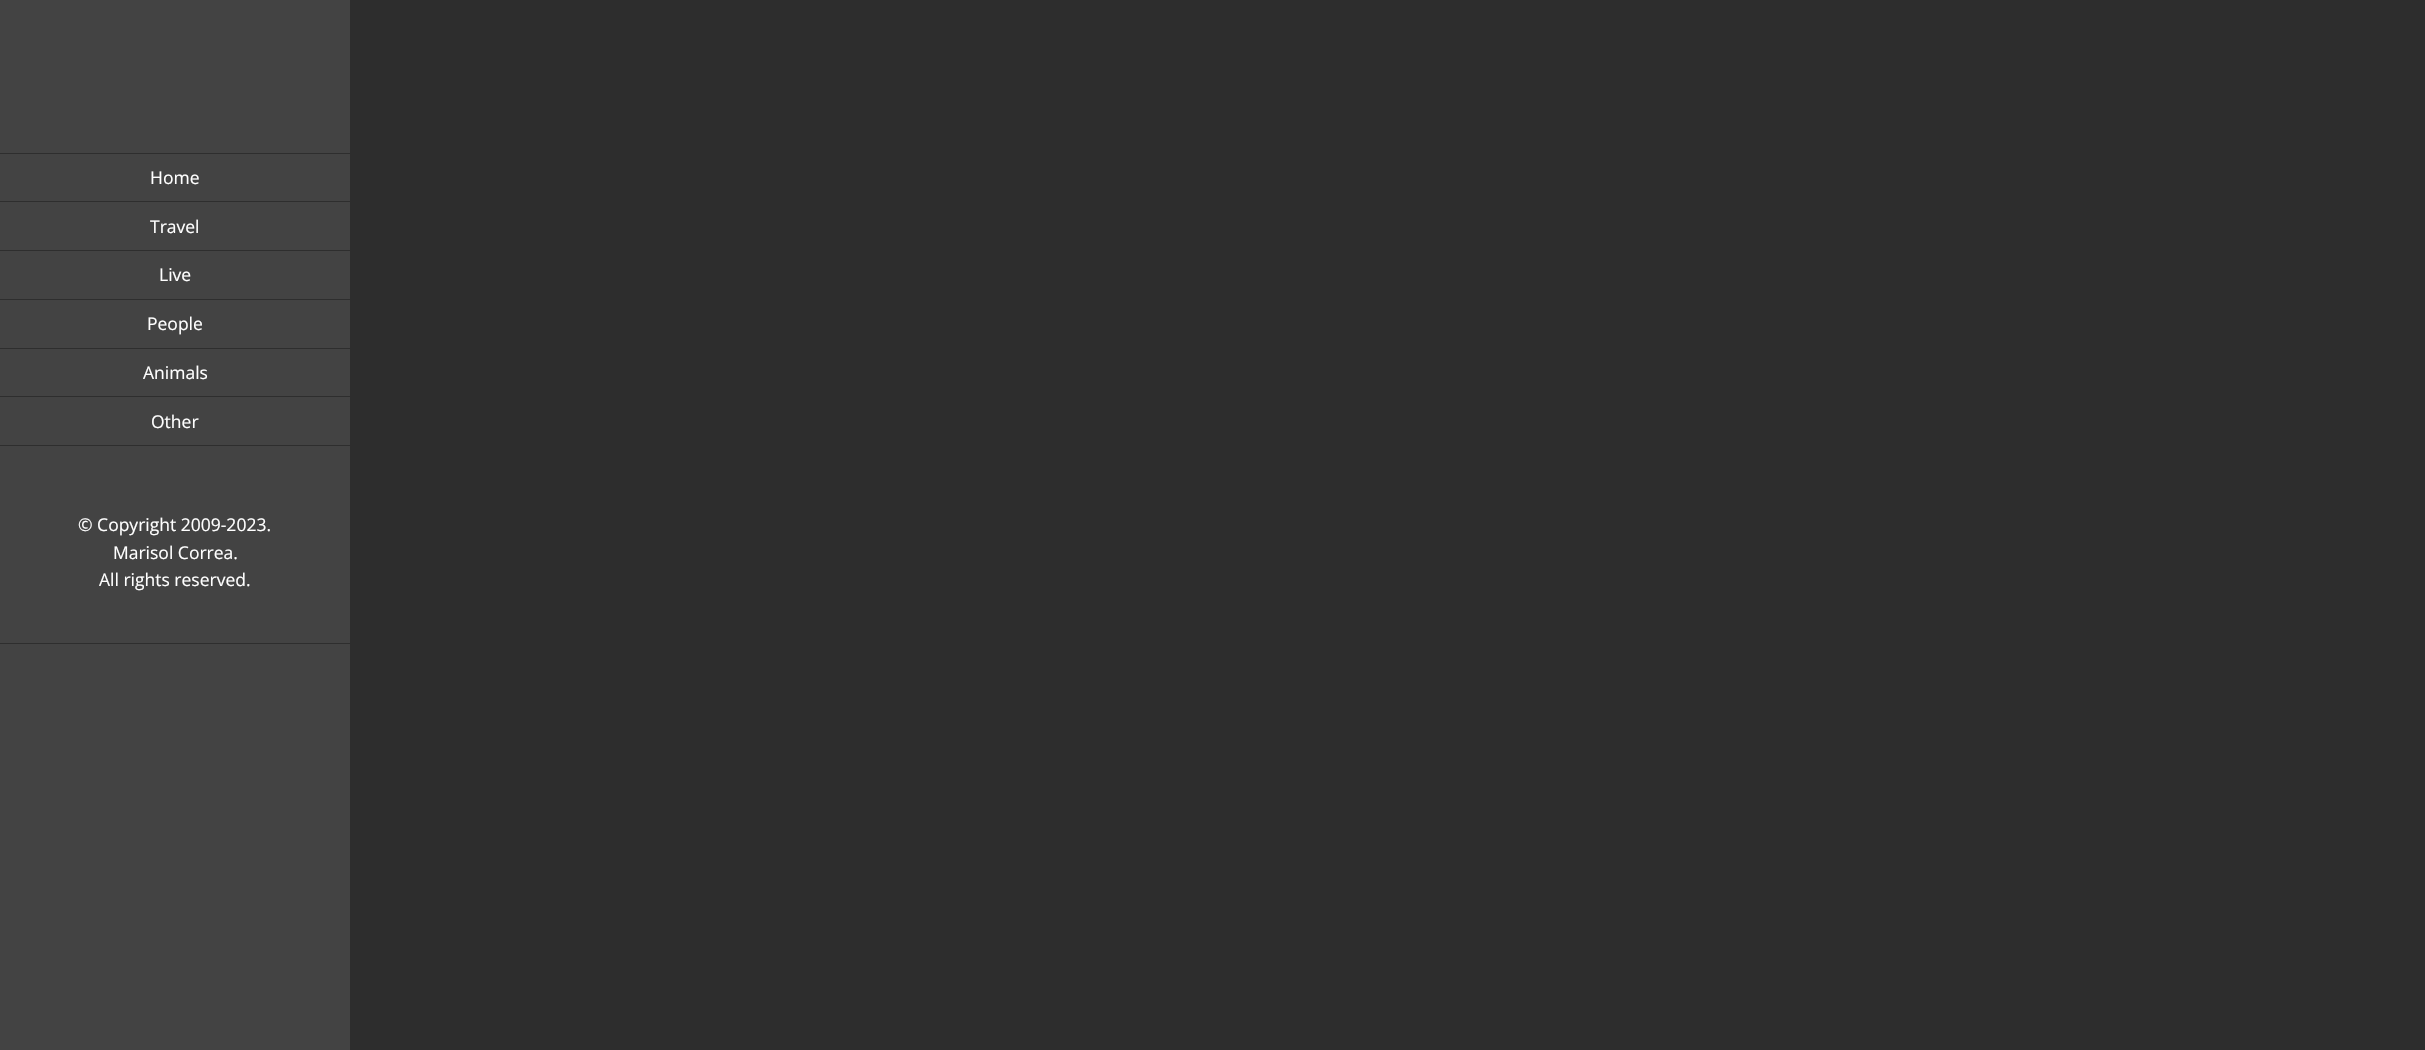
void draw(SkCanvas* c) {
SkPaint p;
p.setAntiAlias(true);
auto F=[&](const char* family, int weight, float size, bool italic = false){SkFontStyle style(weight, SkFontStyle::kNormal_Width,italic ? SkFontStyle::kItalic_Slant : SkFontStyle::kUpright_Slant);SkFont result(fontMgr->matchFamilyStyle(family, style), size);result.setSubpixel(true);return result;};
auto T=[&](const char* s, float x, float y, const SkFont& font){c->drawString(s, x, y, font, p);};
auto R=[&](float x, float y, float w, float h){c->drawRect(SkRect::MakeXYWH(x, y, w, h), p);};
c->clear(0xff2d2d2d);
p.setColor(0xff434343);
R(0,0,350,1050);
p.setColor(0xff2e2e2e);
R(0,153,350,1);
R(0,201,350,1);
auto f1 = F("Open Sans",400,17.5);
p.setColor(0xffffffff);
T("Home",150,184,f1);
p.setColor(0xff2e2e2e);
R(0,250,350,1);
p.setColor(0xffffffff);
T("Travel",150,233,f1);
p.setColor(0xff2e2e2e);
R(0,299,350,1);
p.setColor(0xffffffff);
T("Live",159,281,f1);
p.setColor(0xff2e2e2e);
R(0,348,350,1);
p.setColor(0xffffffff);
T("People",147,330,f1);
p.setColor(0xff2e2e2e);
R(0,396,350,1);
p.setColor(0xffffffff);
T("Animals",143,379,f1);
p.setColor(0xff2e2e2e);
R(0,445,350,1);
p.setColor(0xffffffff);
T("Other",151,428,f1);
p.setColor(0xff2e2e2e);
R(0,643,350,1);
p.setColor(0xffffffff);
T("© Copyright 2009-2023.",78,531,f1);
T("Marisol Correa.",113,559,f1);
T("All rights reserved.",99,586,f1);
}
